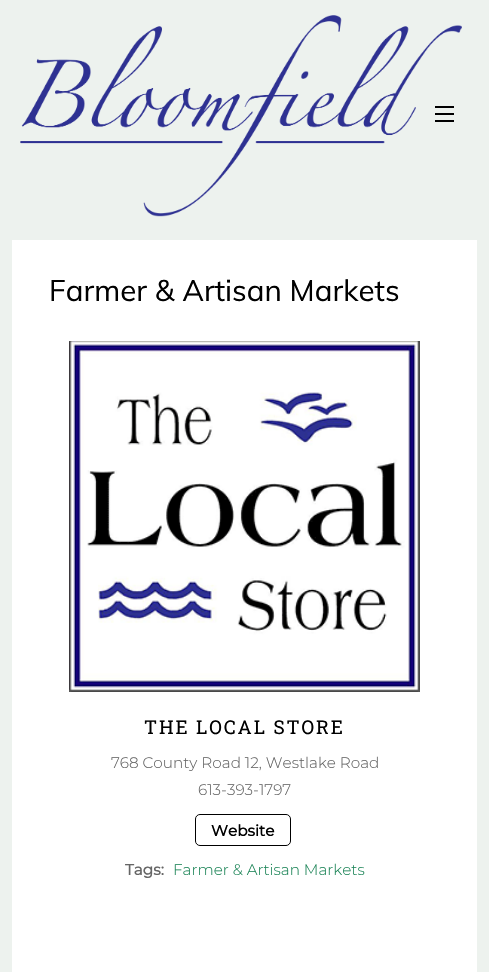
void draw(SkCanvas* c) {
SkPaint p;
p.setAntiAlias(true);
auto F=[&](const char* family, int weight, float size, bool italic = false){SkFontStyle style(weight, SkFontStyle::kNormal_Width,italic ? SkFontStyle::kItalic_Slant : SkFontStyle::kUpright_Slant);SkFont result(fontMgr->matchFamilyStyle(family, style), size);result.setSubpixel(true);return result;};
auto T=[&](const char* s, float x, float y, const SkFont& font){c->drawString(s, x, y, font, p);};
auto L=[&](const char* s, float x, float y, const SkFont& font, const SkPaint& ink, float letter, float word){std::vector<SkGlyphID> glyphs(font.countText(s, strlen(s), SkTextEncoding::kUTF8));std::vector<float> xs(glyphs.size());font.textToGlyphs(s, strlen(s), SkTextEncoding::kUTF8, glyphs);font.getXPos(glyphs, xs, x);float extra = 0;for (size_t i = 0; i < glyphs.size(); i++) {xs[i] += extra;extra += letter + word * (glyphs[i] == font.unicharToGlyph(' '));}c->drawTextBlob(SkTextBlob::MakeFromPosHGlyphs(glyphs, xs, y, font), 0, 0, ink);};
auto R=[&](float x, float y, float w, float h){c->drawRect(SkRect::MakeXYWH(x, y, w, h), p);};
auto I=[&](const char* path, float x, float y, float w, float h){auto image = SkImages::DeferredFromEncodedData(SkData::MakeFromFileName(path));c->drawImageRect(image, SkRect::MakeXYWH(x, y, w, h), SkSamplingOptions());};
c->clear(0xffedf2ee);
I("1.png",20,15,442,202);
p.setColor(0xff000000);
R(435,120,19,2);
R(435,106,19,2);
R(435,113,19,2);
p.setColor(0xffffffff);
R(12,240,465,732);
auto f1 = F("Muli",400,29.6);
p.setColor(0xff000000);
T("Farmer & Artisan Markets",49,301,f1);
I("2.png",69,341,351,351);
auto f2 = F("Roboto Slab",400,19);
L("THE LOCAL STORE",144,734,f2,p,1.9,0);
auto f3 = F("Montserrat",300,15.25);
p.setColor(0xff666666);
T("768 County Road 12, Westlake Road",111,768,f3);
T("613-393-1797",198,795,f3);
p.setStroke(true);
p.setStrokeWidth(1);
p.setColor(0xff000000);
c->drawRoundRect(SkRect::MakeXYWH(195.5,814.5,95,31),4.5,4.5,p);
auto f4 = F("Montserrat",700,15.25);
p.setStroke(false);
T("Website",211,836,f4);
p.setColor(0xff666666);
T("Tags:",125,875,f4);
p.setColor(0xff1d8558);
T("Farmer & Artisan Markets",173,875,f3);
}
